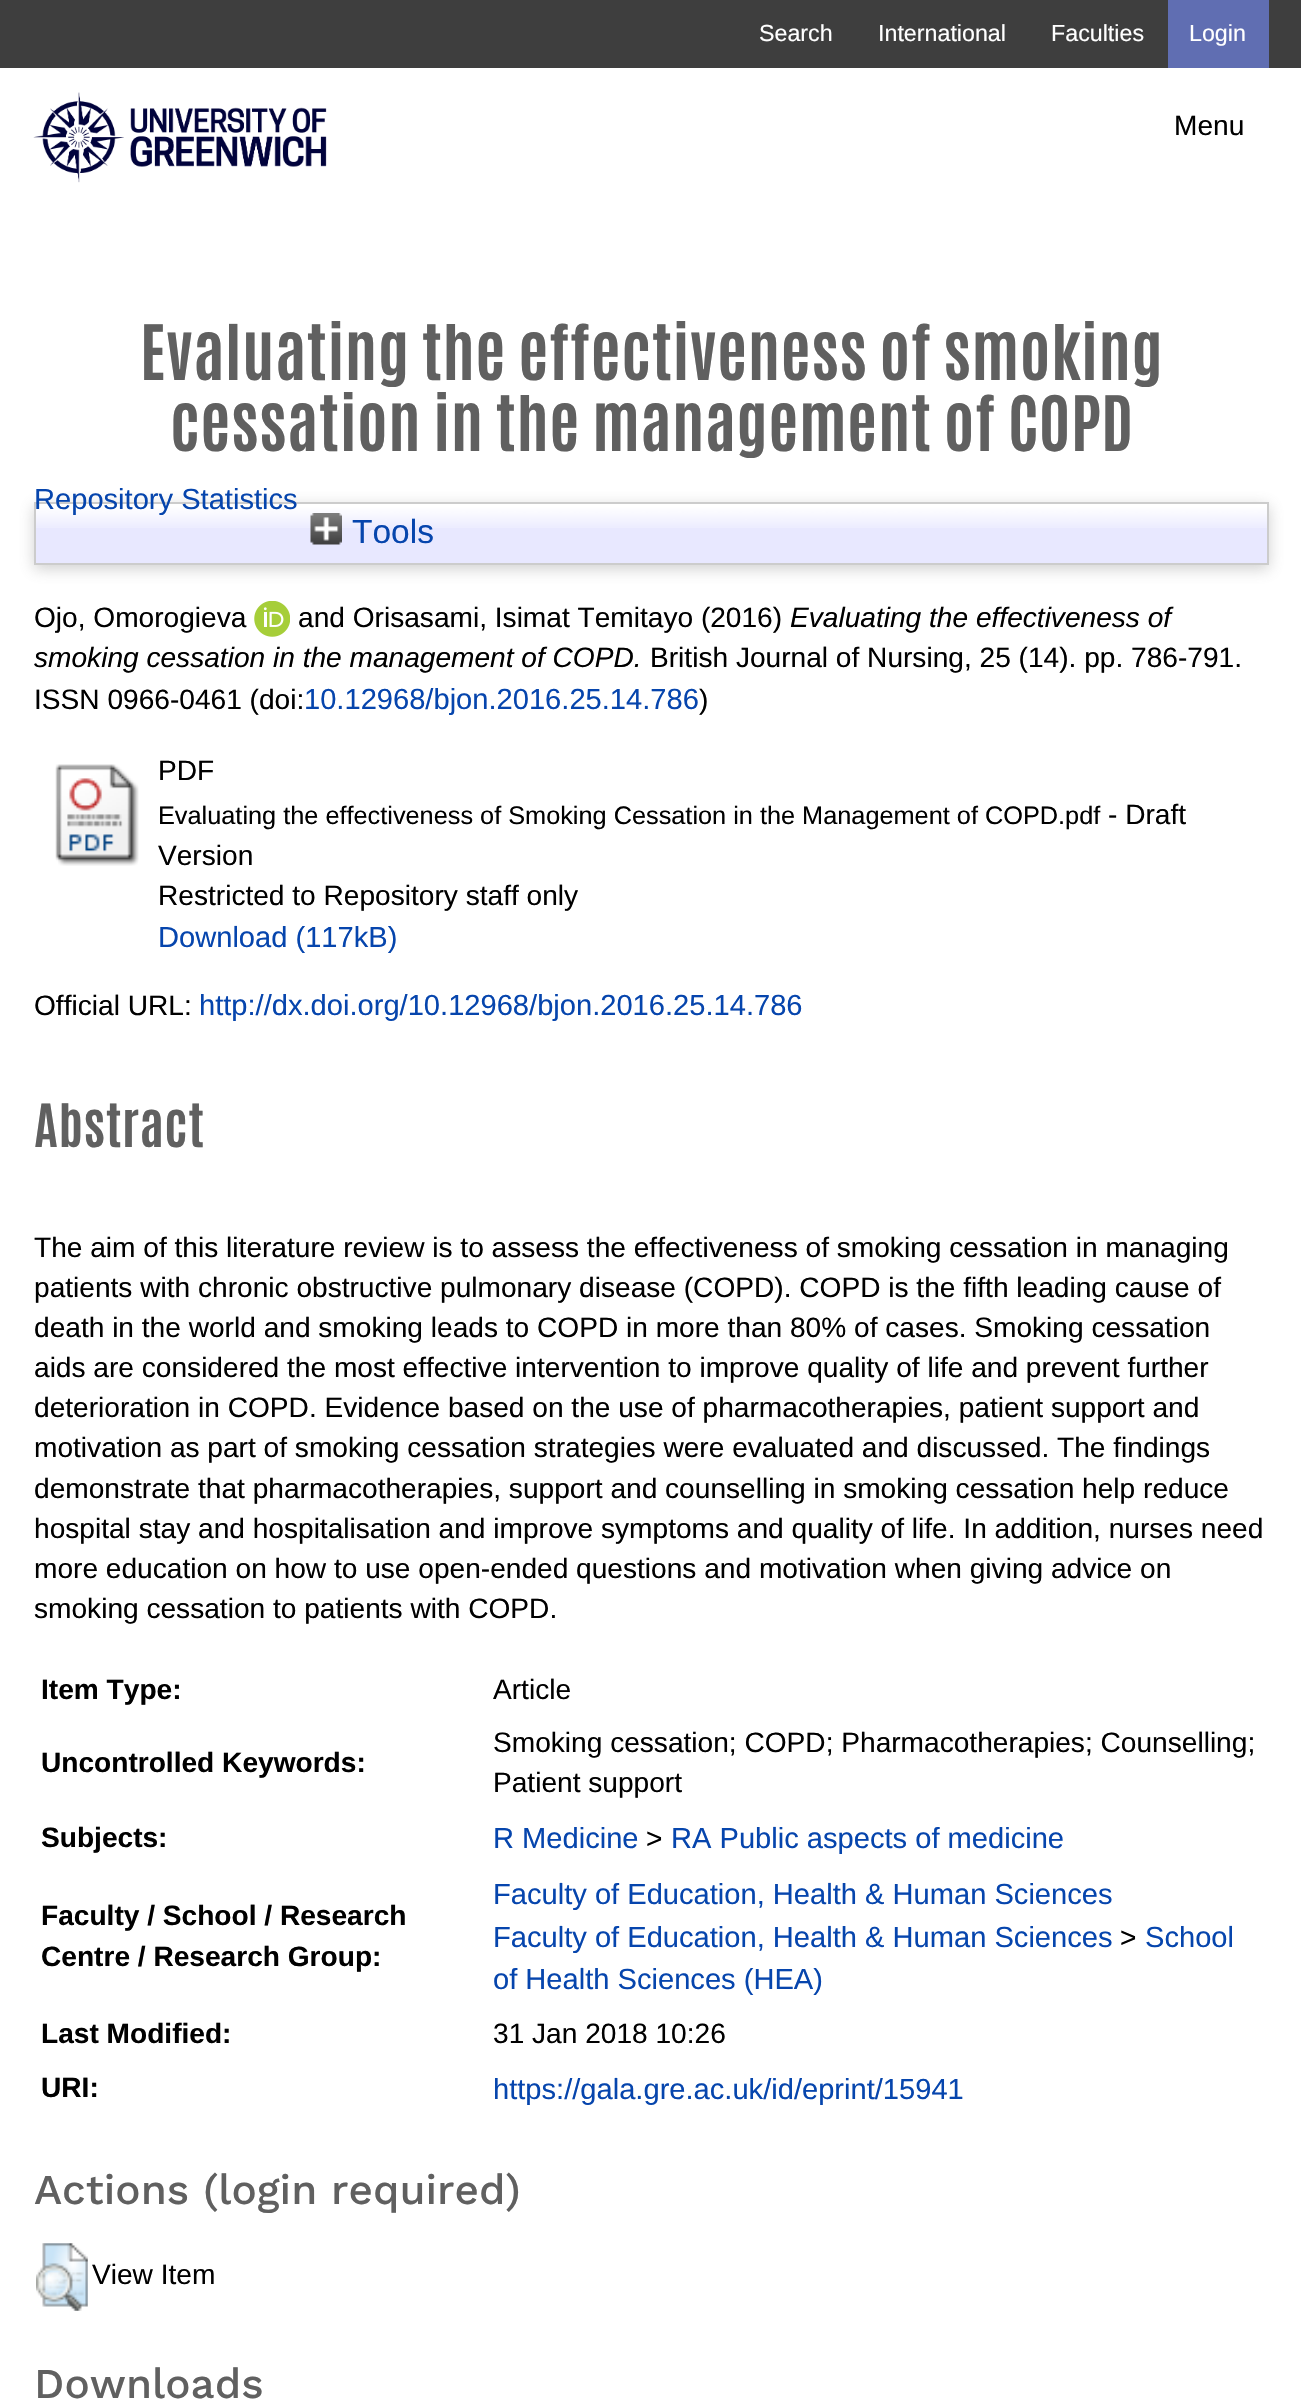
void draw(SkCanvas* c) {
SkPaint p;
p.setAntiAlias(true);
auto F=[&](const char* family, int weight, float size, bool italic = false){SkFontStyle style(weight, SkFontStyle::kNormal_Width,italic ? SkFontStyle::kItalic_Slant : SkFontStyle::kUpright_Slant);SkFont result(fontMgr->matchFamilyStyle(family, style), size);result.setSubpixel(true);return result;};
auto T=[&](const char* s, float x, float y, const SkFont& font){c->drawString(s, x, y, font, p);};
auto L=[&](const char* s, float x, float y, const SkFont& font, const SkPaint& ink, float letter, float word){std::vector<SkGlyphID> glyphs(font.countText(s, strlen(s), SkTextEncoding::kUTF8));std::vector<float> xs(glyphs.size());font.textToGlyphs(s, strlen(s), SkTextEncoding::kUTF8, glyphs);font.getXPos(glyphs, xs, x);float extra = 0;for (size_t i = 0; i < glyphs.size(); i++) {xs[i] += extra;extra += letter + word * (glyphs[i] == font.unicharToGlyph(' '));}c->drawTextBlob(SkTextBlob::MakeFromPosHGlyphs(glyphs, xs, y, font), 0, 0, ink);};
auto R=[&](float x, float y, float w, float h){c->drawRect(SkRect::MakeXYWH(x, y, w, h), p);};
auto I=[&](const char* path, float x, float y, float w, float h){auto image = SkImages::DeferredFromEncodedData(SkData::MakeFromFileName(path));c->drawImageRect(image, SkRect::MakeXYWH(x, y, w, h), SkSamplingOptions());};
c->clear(0xffffffff);
p.setColor(0xff3e3e3e);
R(0,0,1301,68);
auto f1 = F("Liberation Sans",400,23.25);
p.setColor(0xffffffff);
T("Search",759,41,f1);
T("International",878,41,f1);
T("Faculties",1051,41,f1);
p.setColor(0xff606eb2);
R(1168,0,101,68);
p.setColor(0xffffffff);
T("Login",1189,41,f1);
I("1.png",33,92,294,91);
auto f2 = F("Liberation Sans",400,28.1);
p.setColor(0xff000000);
T("Menu",1174,135,f2);
auto f3 = F("Antonio",700,64.75);
p.setColor(0xff606060);
L("Evaluating the effectiveness of smoking",140,380,f3,p,.55,0);
L("cessation in the management of COPD",170,451,f3,p,.55,0);
p.setColor(0x4d646464);
p.setMaskFilter(SkMaskFilter::MakeBlur(kNormal_SkBlurStyle, 7));
c->drawRect(SkRect::MakeXYWH(34,506,1235,63),p);
p.setMaskFilter(nullptr);
p.setColor(0xffe8e8ff);
R(36,505,1231,58);
I("2.png",36,504,1231,24);
p.setStroke(true);
p.setStrokeWidth(2);
p.setColor(0xffcccccc);
c->drawRect(SkRect::MakeXYWH(35,503,1233,61),p);
auto f4 = F("Liberation Sans",400,29.1);
p.setStroke(false);
p.setColor(0xff0645ad);
T("Repository Statistics",34,509,f4);
I("3.png",310,513,32,32);
auto f5 = F("Liberation Sans",400,33.5);
T("Tools",352,543,f5);
p.setColor(0xff000000);
T("Ojo, Omorogieva",34,627,f2);
I("4.png",254,601,36,36);
T("and Orisasami, Isimat Temitayo (2016)",298,627,f2);
auto f6 = F("Liberation Sans",400,28.1,true);
T("Evaluating the effectiveness of",790,627,f6);
T("smoking cessation in the management of COPD.",34,667,f6);
T("British Journal of Nursing, 25 (14). pp. 786-791.",650,667,f2);
T("ISSN 0966-0461 (doi:",34,709,f2);
p.setColor(0xff0645ad);
T("10.12968/bjon.2016.25.14.786",304,709,f4);
p.setColor(0xff000000);
T(")",699,709,f2);
I("5.png",55,764,84,102);
T("PDF",158,780,f2);
auto f7 = F("Liberation Sans",400,25.3);
T("Evaluating the effectiveness of Smoking Cessation in the Management of COPD.pdf",158,824,f7);
T("- Draft",1108,824,f2);
T("Version",158,865,f2);
T("Restricted to Repository staff only",158,905,f2);
p.setColor(0xff0645ad);
T("Download (117kB)",158,947,f4);
p.setColor(0xff000000);
T("Official URL:",34,1015,f2);
p.setColor(0xff0645ad);
T("http://dx.doi.org/10.12968/bjon.2016.25.14.786",199,1015,f4);
auto f8 = F("Antonio",700,50.5);
p.setColor(0xff606060);
L("Abstract",34,1147,f8,p,.55,0);
p.setColor(0xff000000);
T("The aim of this literature review is to assess the effectiveness of smoking cessation in managing",34,1257,f2);
T("patients with chronic obstructive pulmonary disease (COPD). COPD is the fifth leading cause of",34,1297,f2);
T("death in the world and smoking leads to COPD in more than 80% of cases. Smoking cessation",34,1337,f2);
T("aids are considered the most effective intervention to improve quality of life and prevent further",34,1377,f2);
T("deterioration in COPD. Evidence based on the use of pharmacotherapies, patient support and",34,1417,f2);
T("motivation as part of smoking cessation strategies were evaluated and discussed. The findings",34,1457,f2);
T("demonstrate that pharmacotherapies, support and counselling in smoking cessation help reduce",34,1498,f2);
T("hospital stay and hospitalisation and improve symptoms and quality of life. In addition, nurses need",34,1538,f2);
T("more education on how to use open-ended questions and motivation when giving advice on",34,1578,f2);
T("smoking cessation to patients with COPD.",34,1618,f2);
auto f9 = F("Liberation Sans",700,28.1);
T("Item Type:",41,1699,f9);
T("Article",493,1699,f2);
T("Uncontrolled Keywords:",41,1772,f9);
T("Smoking cessation; COPD; Pharmacotherapies; Counselling;",493,1752,f2);
T("Patient support",493,1792,f2);
T("Subjects:",41,1847,f9);
p.setColor(0xff0645ad);
T("R Medicine",493,1848,f4);
p.setColor(0xff000000);
T(">",646,1848,f2);
p.setColor(0xff0645ad);
T("RA Public aspects of medicine",671,1848,f4);
p.setColor(0xff000000);
T("Faculty / School / Research",41,1925,f9);
T("Centre / Research Group:",41,1966,f9);
p.setColor(0xff0645ad);
T("Faculty of Education, Health & Human Sciences",493,1904,f4);
T("Faculty of Education, Health & Human Sciences",493,1947,f4);
p.setColor(0xff000000);
T(">",1120,1947,f2);
p.setColor(0xff0645ad);
T("School",1145,1947,f4);
T("of Health Sciences (HEA)",493,1989,f4);
p.setColor(0xff000000);
T("Last Modified:",41,2043,f9);
T("31 Jan 2018 10:26",493,2043,f2);
T("URI:",41,2097,f9);
p.setColor(0xff0645ad);
T("https://gala.gre.ac.uk/id/eprint/15941",493,2099,f4);
auto f10 = F("Work Sans",500,42.25);
p.setColor(0xff606060);
T("Actions (login required)",34,2204,f10);
I("6.png",36,2243,52,68);
p.setColor(0xff000000);
T("View Item",92,2284,f2);
p.setColor(0xff606060);
T("Downloads",34,2398,f10);
}
